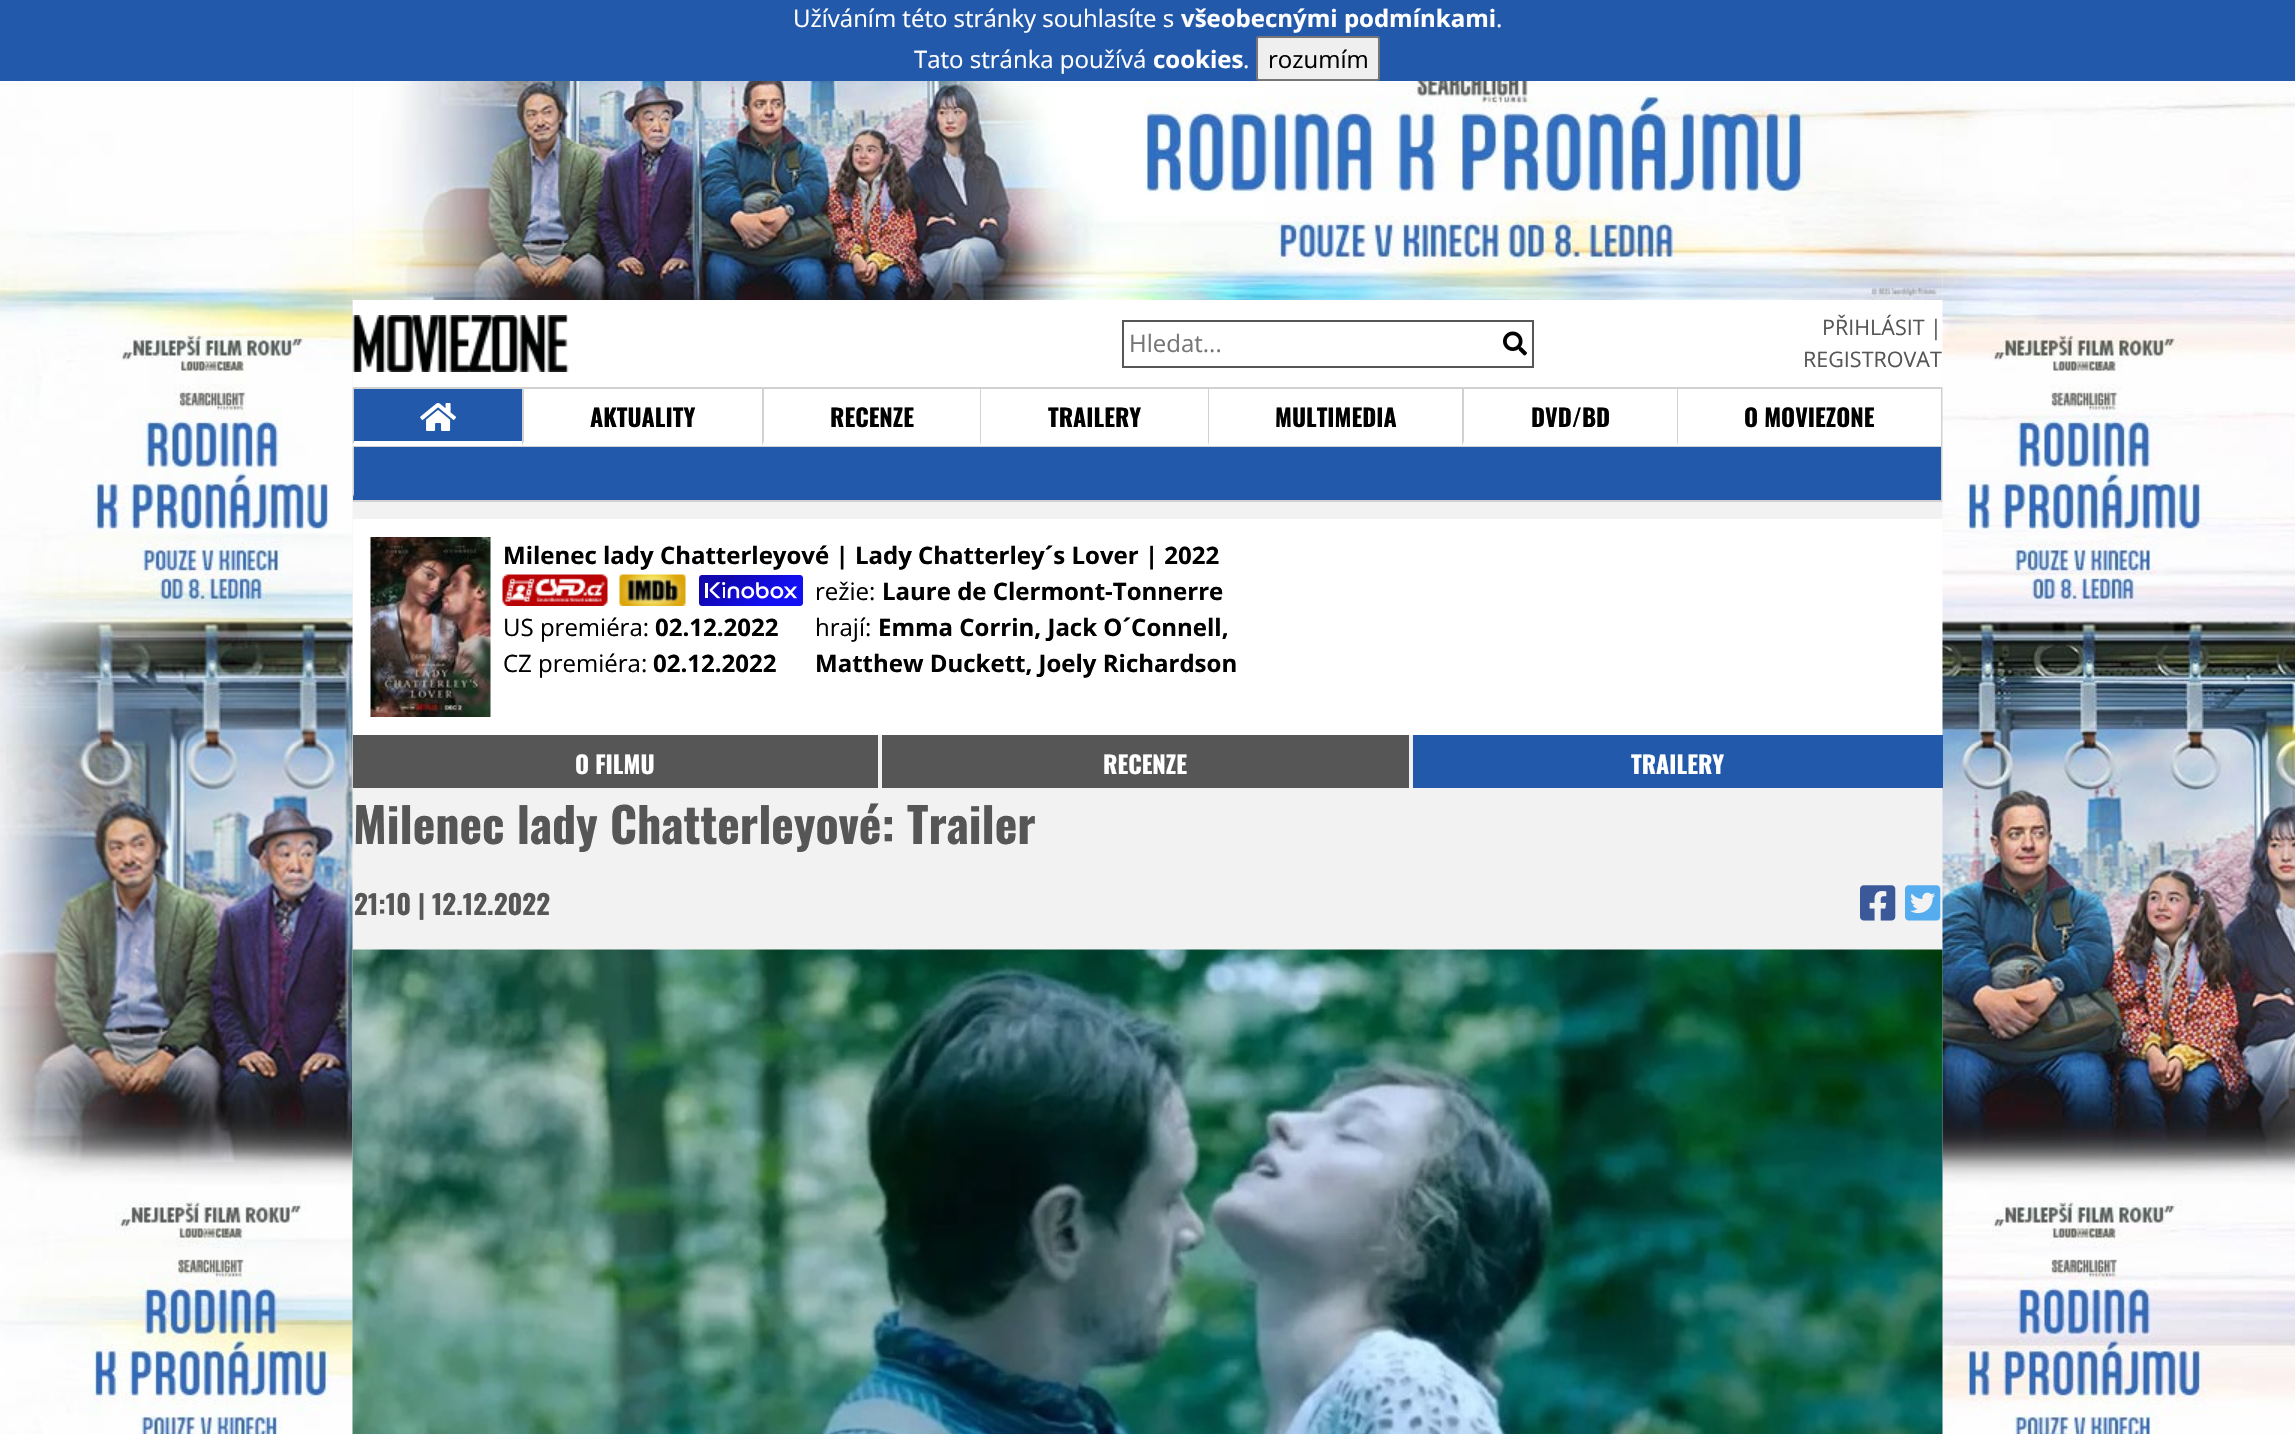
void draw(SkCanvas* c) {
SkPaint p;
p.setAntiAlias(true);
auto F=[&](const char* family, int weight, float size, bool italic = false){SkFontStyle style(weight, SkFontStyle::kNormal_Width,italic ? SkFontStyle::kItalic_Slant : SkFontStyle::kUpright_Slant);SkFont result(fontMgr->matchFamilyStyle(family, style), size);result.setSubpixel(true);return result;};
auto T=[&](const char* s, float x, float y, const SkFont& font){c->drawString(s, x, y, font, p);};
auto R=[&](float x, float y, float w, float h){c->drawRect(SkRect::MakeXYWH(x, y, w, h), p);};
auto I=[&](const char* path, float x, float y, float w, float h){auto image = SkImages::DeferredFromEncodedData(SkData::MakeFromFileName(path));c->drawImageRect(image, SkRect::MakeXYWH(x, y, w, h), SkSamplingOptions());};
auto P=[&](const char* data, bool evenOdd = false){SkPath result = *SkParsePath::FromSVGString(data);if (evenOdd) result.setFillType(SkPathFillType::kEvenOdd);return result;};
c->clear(0xfff2f2f2);
p.setColor(0xff2359ab);
R(0,0,2295,81);
auto f1 = F("Open Sans",400,24);
p.setColor(0xffffffff);
T("Užíváním této stránky souhlasíte s",793,27,f1);
auto f2 = F("Open Sans",700,24);
T("všeobecnými podmínkami",1181,27,f2);
T(".",1496,27,f1);
T("Tato stránka používá",914,68,f1);
T("cookies",1153,68,f2);
T(".",1243,68,f1);
p.setColor(0xffefefef);
c->drawRoundRect(SkRect::MakeXYWH(1257,37,122,43),2,2,p);
p.setStroke(true);
p.setStrokeWidth(2);
p.setColor(0xff767676);
c->drawRoundRect(SkRect::MakeXYWH(1257,37,122,43),2,2,p);
p.setStroke(false);
p.setColor(0xff000000);
T("rozumím",1268,68,f1);
I("2.png",352,81,1591,219);
p.setColor(0xffffffff);
R(353,300,1590,87);
I("4.png",352,315,217,57);
p.setColor(0xff2359ab);
R(353,389,169,55);
p.setColor(0xffffffff);
c->drawPath(P("M522 446h-170l2-5h168z"),p);
p.setColor(0xffd1d1d1);
R(353,387,1590,2);
c->drawPath(P("M352 446v-58h2v53z"),p);
p.setColor(0xff2359ab);
R(353,447,1588,53);
p.setColor(0xffd1d1d1);
c->drawPath(P("M352 500v-53h2v47z"),p);
I("1.png",0,81,353,1353);
R(1941,387,2,114);
R(353,446,1590,1);
R(353,500,1590,2);
p.setColor(0xffffffff);
R(353,519,1590,216);
I("3.png",1942,81,353,1353);
p.setColor(0xff565656);
R(1122,320,411,2);
R(1122,366,375,2);
R(1122,320,2,48);
p.setColor(0xff757575);
T("Hledat...",1129,352,f1);
p.setColor(0xff565656);
R(1532,320,2,48);
R(1497,366,36,2);
I("5.png",1503,331,24,25);
auto f3 = F("Open Sans",400,21.5);
T("PŘIHLÁSIT |",1822,335,f3);
T("REGISTROVAT",1803,367,f3);
p.setColor(0xffffffff);
R(522,389,1419,57);
I("6.png",420,403,36,28);
p.setColor(0xffd1d1d1);
c->drawPath(P("M522 446v-58h2v53z"),p);
auto f4 = F("Oswald",700,24);
p.setColor(0xff000000);
T("AKTUALITY",590,427,f4);
p.setColor(0xffd1d1d1);
c->drawPath(P("M762 446v-58h2v53z"),p);
p.setColor(0xff000000);
T("RECENZE",830,427,f4);
p.setColor(0xffd1d1d1);
c->drawPath(P("M980 446v-58h1v53z"),p);
p.setColor(0xff000000);
T("TRAILERY",1048,427,f4);
p.setColor(0xffd1d1d1);
c->drawPath(P("M1208 446v-58h1v53z"),p);
p.setColor(0xff000000);
T("MULTIMEDIA",1275,427,f4);
p.setColor(0xffd1d1d1);
c->drawPath(P("M1462 446v-58h2v53z"),p);
p.setColor(0xff000000);
T("DVD/BD",1531,427,f4);
p.setColor(0xffd1d1d1);
c->drawPath(P("M1677 446v-58h1v53z"),p);
p.setColor(0xff000000);
T("O MOVIEZONE",1744,427,f4);
I("7.png",370,537,121,180);
T("Milenec lady Chatterleyové | Lady Chatterley´s Lover | 2022",503,564,f2);
I("8.png",502,574,106,32);
I("9.png",619,574,67,32);
I("10.png",699,575,104,31);
T("US premiéra:",503,636,f1);
T("02.12.2022",655,636,f2);
T("CZ premiéra:",503,672,f1);
T("02.12.2022",653,672,f2);
T("režie:",815,600,f1);
T("Laure de Clermont-Tonnerre",882,600,f2);
T("hrají:",815,636,f1);
T("Emma Corrin, Jack O´Connell,",878,636,f2);
T("Matthew Duckett, Joely Richardson",815,672,f2);
p.setColor(0xff565656);
R(353,735,525,53);
p.setColor(0xffffffff);
T("O FILMU",575,774,f4);
p.setColor(0xff565656);
R(882,735,527,53);
p.setColor(0xffffffff);
T("RECENZE",1103,774,f4);
p.setColor(0xff2359ab);
R(1413,735,530,53);
p.setColor(0xffffffff);
T("TRAILERY",1631,774,f4);
auto f5 = F("Oswald",700,48);
p.setColor(0xff565656);
T("Milenec lady Chatterleyové: Trailer",353,844,f5);
auto f6 = F("Oswald",700,27);
T("21:10 | 12.12.2022",354,915,f6);
I("11.png",1860,885,36,36);
I("12.png",1905,885,36,36);
I("13.png",352,949,1591,485);
}
